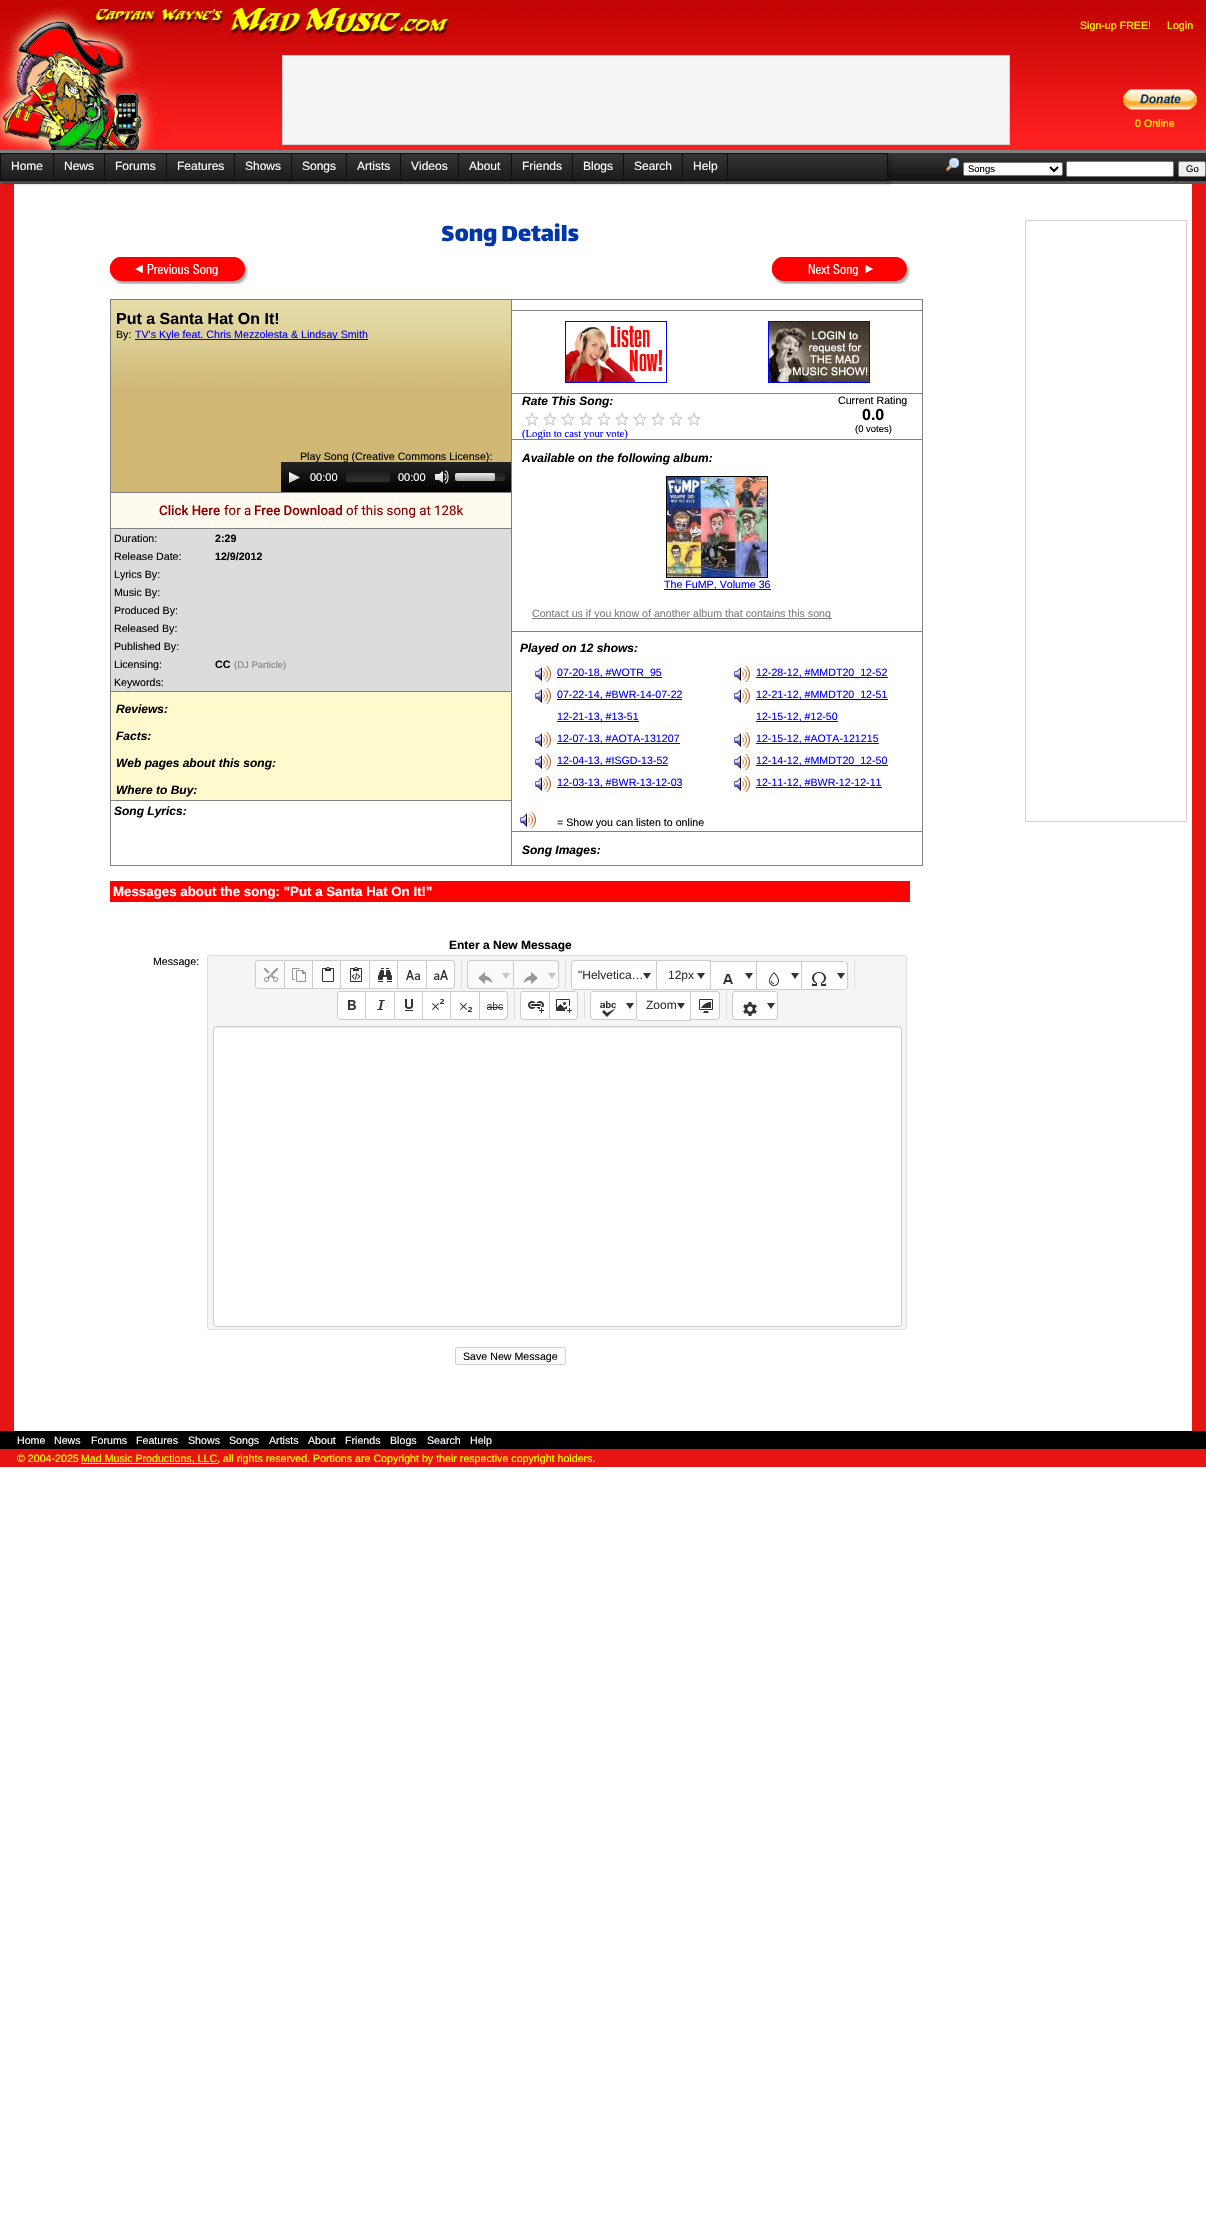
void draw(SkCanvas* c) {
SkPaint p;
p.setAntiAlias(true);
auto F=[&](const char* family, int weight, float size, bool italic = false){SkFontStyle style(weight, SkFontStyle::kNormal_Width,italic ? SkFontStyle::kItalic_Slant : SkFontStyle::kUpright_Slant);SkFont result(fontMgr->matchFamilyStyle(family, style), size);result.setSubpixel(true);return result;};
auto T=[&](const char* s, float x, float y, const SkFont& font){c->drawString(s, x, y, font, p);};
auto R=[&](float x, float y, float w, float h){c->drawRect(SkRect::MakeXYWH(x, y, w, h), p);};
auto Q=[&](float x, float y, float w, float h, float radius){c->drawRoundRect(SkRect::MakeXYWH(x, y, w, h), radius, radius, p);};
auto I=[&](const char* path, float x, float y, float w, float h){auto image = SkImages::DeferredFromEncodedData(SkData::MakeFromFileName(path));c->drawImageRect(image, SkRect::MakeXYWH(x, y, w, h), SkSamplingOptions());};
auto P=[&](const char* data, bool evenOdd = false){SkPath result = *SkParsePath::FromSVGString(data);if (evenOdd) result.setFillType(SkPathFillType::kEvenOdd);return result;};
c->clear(0xffffffff);
I("1.png",0,0,508,49);
I("2.png",508,0,262,49);
I("3.png",770,0,436,49);
auto f1 = F("Liberation Sans",400,10.65);
p.setColor(0xffffff00);
T("Sign-up FREE!",1080,29,f1);
T("Login",1167,29,f1);
p.setColor(0xfffe1f1f);
R(170,132,1036,18);
I("4.png",0,49,170,101);
I("5.png",170,49,952,83);
p.setColor(0xfff5f5f5);
c->drawRect(SkRect::MakeXYWH(282.5,55.5,727,89),p);
p.setStroke(true);
p.setStrokeWidth(1);
p.setColor(0xffd3d3d3);
c->drawRect(SkRect::MakeXYWH(282.5,55.5,727,89),p);
I("6.png",1122,49,84,83);
I("7.png",1123,89,74,21);
p.setStroke(false);
p.setColor(0xffffff00);
T("0 Online",1135,127,f1);
p.setColor(0xff808080);
R(0,150,1206,3);
p.setColor(0xff555555);
R(0,181,1206,3);
p.setColor(0xff161616);
R(888,174,318,7);
I("8.png",888,153,318,21);
p.setColor(0xffe61514);
R(0,184,14,1247);
p.setColor(0x33000000);
p.setMaskFilter(SkMaskFilter::MakeBlur(kNormal_SkBlurStyle, 1.5));
c->drawRect(SkRect::MakeXYWH(3,156,888,28),p);
p.setMaskFilter(nullptr);
{
const SkColor colors[] = {0xff353434,0xff1b1b1b};
const float stops[] = {0,1};
const SkPoint ends[] = {{444,154}, {444,180}};
p.setShader(SkGradientShader::MakeLinear(ends, colors, stops, 2, SkTileMode::kClamp));
p.setAlpha(255);
}
R(1,154,886,26);
p.setStroke(true);
p.setShader(nullptr);
p.setColor(0xff0e0e0e);
c->drawRect(SkRect::MakeXYWH(.5,153.5,887,27),p);
p.setStroke(false);
R(53,154,1,26);
auto f2 = F("Liberation Sans",400,12);
p.setColor(0xffffffff);
T("Home",11,170,f2);
p.setColor(0xff0e0e0e);
R(104,154,1,26);
p.setColor(0xffffffff);
T("News",64,170,f2);
p.setColor(0xff0e0e0e);
R(166,154,1,26);
p.setColor(0xffffffff);
T("Forums",115,170,f2);
p.setColor(0xff0e0e0e);
R(234,154,1,26);
p.setColor(0xffffffff);
T("Features",177,170,f2);
p.setColor(0xff0e0e0e);
R(291,154,1,26);
p.setColor(0xffffffff);
T("Shows",245,170,f2);
p.setColor(0xff0e0e0e);
R(346,154,1,26);
p.setColor(0xffffffff);
T("Songs",302,170,f2);
p.setColor(0xff0e0e0e);
R(400,154,1,26);
p.setColor(0xffffffff);
T("Artists",357,170,f2);
p.setColor(0xff0e0e0e);
R(458,154,1,26);
p.setColor(0xffffffff);
T("Videos",411,170,f2);
p.setColor(0xff0e0e0e);
R(511,154,1,26);
p.setColor(0xffffffff);
T("About",469,170,f2);
p.setColor(0xff0e0e0e);
R(572,154,1,26);
p.setColor(0xffffffff);
T("Friends",522,170,f2);
p.setColor(0xff0e0e0e);
R(623,154,1,26);
p.setColor(0xffffffff);
T("Blogs",583,170,f2);
p.setColor(0xff0e0e0e);
R(682,154,1,26);
p.setColor(0xffffffff);
T("Search",634,170,f2);
p.setColor(0xff0e0e0e);
R(727,154,1,26);
p.setColor(0xffffffff);
T("Help",693,170,f2);
I("9.png",946,158,13,14);
c->drawRoundRect(SkRect::MakeXYWH(963.5,162.5,99,13),1.5,1.5,p);
p.setStroke(true);
p.setColor(0xff767676);
c->drawRoundRect(SkRect::MakeXYWH(963.5,162.5,99,13),1.5,1.5,p);
p.setStrokeWidth(2);
p.setColor(0xff000000);
c->drawPath(P("M1050 167l4 4l4-4"),p);
auto f3 = F("Liberation Sans",400,9.5);
p.setStroke(false);
T("Songs",968,172,f3);
p.setColor(0xffffffff);
c->drawRoundRect(SkRect::MakeXYWH(1066.5,161.5,107,15),1.5,1.5,p);
p.setStroke(true);
p.setStrokeWidth(1);
p.setColor(0xff767676);
c->drawRoundRect(SkRect::MakeXYWH(1066.5,161.5,107,15),1.5,1.5,p);
p.setStroke(false);
p.setColor(0xffefefef);
c->drawRoundRect(SkRect::MakeXYWH(1178.5,161.5,27,15),1.5,1.5,p);
p.setStroke(true);
p.setColor(0xff767676);
c->drawRoundRect(SkRect::MakeXYWH(1178.5,161.5,27,15),1.5,1.5,p);
p.setStroke(false);
p.setColor(0xff000000);
T("Go",1186,172,f3);
p.setColor(0xffe61514);
R(1192,184,14,1247);
auto f4 = F("Lalezar",400,26.5);
p.setColor(0xff0136a8);
T("Song Details",441,241,f4);
I("10.png",110,257,138,27);
I("11.png",772,257,138,27);
p.setStroke(true);
p.setColor(0xff808080);
c->drawRect(SkRect::MakeXYWH(110.5,299.5,401,566),p);
p.setStroke(false);
R(111,528,400,1);
p.setColor(0xffd0b773);
R(111,388,400,104);
I("12.png",111,300,400,88);
auto f5 = F("Liberation Sans",700,16);
p.setColor(0xff000000);
T("Put a Santa Hat On It!",116,324,f5);
T("By:",116,338,f1);
p.setColor(0xff0000ff);
R(135,339,233,1);
T("TV's Kyle feat. Chris Mezzolesta & Lindsay Smith",135,338,f1);
p.setColor(0xff000000);
T("Play Song (Creative Commons License):",300,460,f1);
{
const SkColor colors[] = {0xff232323,0xff000000};
const float stops[] = {0,1};
const SkPoint ends[] = {{396,462}, {396,492}};
p.setShader(SkGradientShader::MakeLinear(ends, colors, stops, 2, SkTileMode::kClamp));
p.setAlpha(255);
}
R(281,462,230,30);
I("13.png",289,472,11,11);
auto f6 = F("Liberation Sans",400,11);
p.setShader(nullptr);
p.setColor(0xffffffff);
T("00:00",310,481,f6);
{
const SkColor colors[] = {0xcc1e1e1e,0xcc3c3c3c};
const float stops[] = {0,1};
const SkPoint ends[] = {{368,472}, {368,482}};
p.setShader(SkGradientShader::MakeLinear(ends, colors, stops, 2, SkTileMode::kClamp));
p.setAlpha(255);
}
Q(346,472,44,10,2);
p.setShader(nullptr);
p.setColor(0xffffffff);
T("00:00",398,481,f6);
I("14.png",435,470,14,14);
{
const SkColor colors[] = {0xcc1e1e1e,0xcc3c3c3c};
const float stops[] = {0,1};
const SkPoint ends[] = {{480,473}, {480,481}};
p.setShader(SkGradientShader::MakeLinear(ends, colors, stops, 2, SkTileMode::kClamp));
p.setAlpha(255);
}
Q(455,473,50,8,2);
{
const SkColor colors[] = {0xe6ffffff,0xccc8c8c8};
const float stops[] = {0,1};
const SkPoint ends[] = {{475,473}, {475,481}};
p.setShader(SkGradientShader::MakeLinear(ends, colors, stops, 2, SkTileMode::kClamp));
p.setAlpha(255);
}
Q(455,473,40,8,2);
p.setShader(nullptr);
p.setColor(0xfffffaf0);
R(111,493,400,35);
p.setColor(0xff808080);
R(111,492,400,1);
auto f7 = F("Roboto",500,13.3);
p.setColor(0xff8b0000);
T("Click Here",159,515,f7);
auto f8 = F("Roboto",400,13.3);
T("for a",224,515,f8);
T("Free Download",254,515,f7);
T("of this song at 128k",346,515,f8);
p.setColor(0xff808080);
R(111,691,400,1);
p.setColor(0xffdcdcdc);
R(111,529,400,162);
p.setColor(0xff000000);
T("Duration:",114,542,f1);
auto f9 = F("Liberation Sans",700,10.65);
T("2:29",215,542,f9);
T("Release Date:",114,560,f1);
T("12/9/2012",215,560,f9);
T("Lyrics By:",114,578,f1);
T("Music By:",114,596,f1);
T("Produced By:",114,614,f1);
T("Released By:",114,632,f1);
T("Published By:",114,650,f1);
T("Licensing:",114,668,f1);
T("CC",215,668,f9);
p.setColor(0xff808080);
T("(DJ Particle)",234,668,f3);
p.setColor(0xff000000);
T("Keywords:",114,686,f1);
p.setColor(0xff808080);
R(111,800,400,1);
p.setColor(0xfffffacd);
R(111,692,400,108);
auto f10 = F("Liberation Sans",700,12,true);
p.setColor(0xff000000);
T("Reviews:",116,713,f10);
T("Facts:",116,740,f10);
T("Web pages about this song:",116,767,f10);
T("Where to Buy:",116,794,f10);
T("Song Lyrics:",114,815,f10);
p.setColor(0xff808080);
R(512,299,411,1);
R(922,299,1,567);
R(512,865,411,1);
R(512,310,410,1);
R(512,393,410,1);
p.setStroke(true);
p.setColor(0xff0000ff);
c->drawRect(SkRect::MakeXYWH(565.5,321.5,101,61),p);
I("15.png",566,326,97,56);
c->drawRect(SkRect::MakeXYWH(768.5,321.5,101,61),p);
I("16.png",769,322,100,60);
p.setStroke(false);
p.setColor(0xff808080);
R(512,439,410,1);
p.setColor(0xff000000);
T("Rate This Song:",522,405,f10);
I("17.png",525,412,14,14);
I("17.png",543,412,14,14);
I("17.png",561,412,14,14);
I("17.png",579,412,14,14);
I("17.png",597,412,14,14);
I("17.png",615,412,14,14);
I("17.png",633,412,14,14);
I("17.png",651,412,14,14);
I("17.png",669,412,14,14);
I("17.png",687,412,14,14);
auto f11 = F("Liberation Serif",400,10.65);
p.setColor(0xff0000ff);
T("(Login to cast your vote)",522,437,f11);
p.setColor(0xff000000);
T("Current Rating",838,404,f1);
T("0.0",862,420,f5);
T("(0 votes)",855,432,f3);
p.setColor(0xff808080);
R(512,631,410,1);
p.setColor(0xff000000);
T("Available on the following album:",522,462,f10);
p.setStroke(true);
c->drawRect(SkRect::MakeXYWH(666.5,476.5,101,101),p);
I("18.png",667,477,100,100);
p.setStroke(false);
p.setColor(0xff0000ff);
R(664,589,107,1);
T("The FuMP, Volume 36",664,588,f1);
p.setColor(0xff808080);
R(532,618,300,1);
T("Contact us if you know of another album that contains this song",532,617,f1);
R(512,831,410,1);
p.setColor(0xff000000);
T("Played on 12 shows:",520,652,f10);
I("19.png",535,666,16,16);
p.setColor(0xff0000ff);
R(557,677,105,1);
T("07-20-18, #WOTR_95",557,676,f1);
I("19.png",734,666,16,16);
R(756,677,132,1);
T("12-28-12, #MMDT20_12-52",756,676,f1);
I("19.png",535,688,16,16);
R(557,699,125,1);
T("07-22-14, #BWR-14-07-22",557,698,f1);
I("19.png",734,688,16,16);
R(756,699,132,1);
T("12-21-12, #MMDT20_12-51",756,698,f1);
R(557,721,82,1);
T("12-21-13, #13-51",557,720,f1);
R(756,721,82,1);
T("12-15-12, #12-50",756,720,f1);
I("19.png",535,732,16,16);
R(557,743,123,1);
T("12-07-13, #AOTA-131207",557,742,f1);
I("19.png",734,732,16,16);
R(756,743,123,1);
T("12-15-12, #AOTA-121215",756,742,f1);
I("19.png",535,754,16,16);
R(557,765,111,1);
T("12-04-13, #ISGD-13-52",557,764,f1);
I("19.png",734,754,16,16);
R(756,765,132,1);
T("12-14-12, #MMDT20_12-50",756,764,f1);
I("19.png",535,776,16,16);
R(557,787,125,1);
T("12-03-13, #BWR-13-12-03",557,786,f1);
I("19.png",734,776,16,16);
R(756,787,126,1);
T("12-11-12, #BWR-12-12-11",756,786,f1);
I("19.png",520,812,16,16);
p.setColor(0xff000000);
T("= Show you can listen to online",557,826,f1);
T("Song Images:",522,854,f10);
p.setColor(0xffff0000);
R(110,881,800,21);
auto f12 = F("Liberation Sans",700,13.3);
p.setColor(0xffffffff);
T("Messages about the song: \"Put a Santa Hat On It!\"",113,896,f12);
auto f13 = F("Liberation Sans",700,12);
p.setColor(0xff000000);
T("Enter a New Message",449,949,f13);
T("Message:",153,965,f1);
p.setColor(0xfff5f5f5);
c->drawRoundRect(SkRect::MakeXYWH(207.5,955.5,699,374),2.5,2.5,p);
p.setStroke(true);
p.setColor(0xffdedede);
c->drawRoundRect(SkRect::MakeXYWH(207.5,955.5,699,374),2.5,2.5,p);
p.setColor(0xffcccccc);
c->drawPath(P("M258 960.5h26.5v28h-26.5c-1.5 0-2.5-1-2.5-2.5v-23c0-1.5 1-2.5 2.5-2.5z"),p);
p.setStroke(false);
p.setColor(0x80ffffff);
c->drawPath(P("M259 961h25v27h-25c-1.5 0-3-1.5-3-3v-21c0-1.5 1.5-3 3-3z"),p);
I("20.png",264,968,14,14);
p.setColor(0xffcccccc);
R(285,960,142,1);
R(312,960,1,29);
R(285,988,28,1);
p.setColor(0xfffafafa);
R(285,961,27,27);
I("21.png",292,968,14,14);
p.setColor(0xffcccccc);
R(340,960,1,29);
R(313,988,28,1);
p.setColor(0xffffffff);
R(313,961,27,27);
I("22.png",322,967,12,15);
p.setColor(0xffcccccc);
R(369,960,1,29);
R(341,988,29,1);
p.setColor(0xffffffff);
R(341,961,28,27);
I("23.png",350,967,12,15);
p.setColor(0xffcccccc);
R(397,960,1,29);
R(370,988,28,1);
p.setColor(0xffffffff);
R(370,961,27,27);
I("24.png",378,968,14,14);
p.setColor(0xffcccccc);
R(426,960,1,29);
R(398,988,29,1);
p.setColor(0xffffffff);
R(398,961,28,27);
I("25.png",406,970,14,10);
p.setColor(0xffcccccc);
c->drawPath(P("M427 960h24.5c2 0 3.5 1.5 3.5 3.5v22c0 2-1.5 3.5-3.5 3.5h-24.5zm0 1h24.5c1.5 0 2.5 1 2.5 2.5v22c0 1.5-1 2.5-2.5 2.5h-24.5z",true),p);
p.setColor(0xffffffff);
c->drawPath(P("M427 961h24c1.5 0 3 1.5 3 3v21c0 1.5-1.5 3-3 3h-24z"),p);
I("26.png",434,970,14,10);
p.setColor(0xffdedede);
R(461,960,1,29);
p.setStroke(true);
p.setColor(0xffcccccc);
c->drawPath(P("M470 960.5h43.5v28h-43.5c-1.5 0-2.5-1-2.5-2.5v-23c0-1.5 1-2.5 2.5-2.5z"),p);
p.setStroke(false);
p.setColor(0x80ffffff);
c->drawPath(P("M471 961h42v27h-42c-1.5 0-3-1.5-3-3v-21c0-1.5 1.5-3 3-3z"),p);
I("27.png",478,972,14,12);
p.setColor(0xffc5c5c5);
c->drawPath(P("M506 979l-4-6h8z"),p);
p.setColor(0xffcccccc);
c->drawPath(P("M514 960h35c13 0 10 1 10 14c0 14 3 15-10 15h-35zm0 1h35c12 0 9 0 9 13c0 14 3 14-9 14h-35z",true),p);
p.setColor(0x80ffffff);
c->drawPath(P("M514 961h41c1.5 0 3 1.5 3 3v21c0 1.5-1.5 3-3 3h-41z"),p);
I("28.png",524,972,14,12);
p.setColor(0xffc5c5c5);
c->drawPath(P("M552 979l-4-6h8z"),p);
p.setColor(0xffdedede);
R(565,960,1,29);
p.setColor(0xffcccccc);
R(711,961,91,1);
R(756,961,1,29);
R(711,989,46,1);
p.setColor(0xffffffff);
R(711,962,45,27);
I("29.png",723,974,10,10);
p.setColor(0xff333333);
c->drawPath(P("M749 979l-4-6h8z"),p);
p.setColor(0xffdedede);
R(854,960,1,29);
p.setStroke(true);
p.setColor(0xffcccccc);
c->drawPath(P("M574 960.5h82.5v29h-82.5c-1.5 0-2.5-1-2.5-2.5v-24c0-1.5 1-2.5 2.5-2.5z"),p);
p.setStroke(false);
p.setColor(0xffffffff);
c->drawPath(P("M575 961h81v28h-81c-1.5 0-3-1.5-3-3v-22c0-1.5 1.5-3 3-3z"),p);
p.setColor(0xff333333);
T("\"Helvetica…",578,979,f2);
c->drawPath(P("M647 979l-4-6h8z"),p);
p.setColor(0xffcccccc);
R(657,960,54,1);
R(710,960,1,30);
R(657,989,54,1);
p.setColor(0xffffffff);
c->drawPath(P("M657 961h50c1.5 0 3 1.5 3 3v22c0 1.5-1.5 3-3 3h-50z"),p);
p.setColor(0xff333333);
T("12px",668,979,f2);
c->drawPath(P("M701 979l-4-6h8z"),p);
p.setColor(0xffcccccc);
R(801,961,1,29);
R(757,989,45,1);
p.setColor(0xffffffff);
R(757,962,44,27);
I("30.png",769,972,10,14);
p.setColor(0xff333333);
c->drawPath(P("M795 979l-4-6h8z"),p);
p.setColor(0xffcccccc);
c->drawPath(P("M802 961h35c14 0 11 1 11 15c0 13 3 14-11 14h-35zm0 1h35c13 0 10 0 10 14c0 13 3 13-10 13h-35z",true),p);
p.setColor(0xffffffff);
c->drawPath(P("M802 962h42c1.5 0 3 1.5 3 3v21c0 1.5-1.5 3-3 3h-42z"),p);
I("31.png",812,972,14,14);
p.setColor(0xff333333);
c->drawPath(P("M841 979l-4-6h8z"),p);
p.setStroke(true);
p.setColor(0xffcccccc);
c->drawPath(P("M340 991.5h25.5v28h-25.5c-1.5 0-2.5-1-2.5-2.5v-23c0-1.5 1-2.5 2.5-2.5z"),p);
p.setStroke(false);
p.setColor(0xffffffff);
c->drawPath(P("M341 992h24v27h-24c-1.5 0-3-1.5-3-3v-21c0-1.5 1.5-3 3-3z"),p);
I("32.png",348,1000,8,10);
p.setColor(0xffcccccc);
R(366,991,114,1);
R(394,991,1,29);
R(366,1019,29,1);
p.setColor(0xffffffff);
R(366,992,28,27);
I("33.png",377,1000,8,10);
p.setColor(0xffcccccc);
R(422,991,1,29);
R(395,1019,28,1);
p.setColor(0xffffffff);
R(395,992,27,27);
I("34.png",405,999,8,12);
p.setColor(0xffcccccc);
R(450,991,1,29);
R(423,1019,28,1);
p.setColor(0xffffffff);
R(423,992,27,27);
I("35.png",432,999,12,11);
p.setColor(0xffcccccc);
R(479,991,1,29);
R(451,1019,29,1);
p.setColor(0xffffffff);
R(451,992,28,27);
I("36.png",460,1003,12,9);
p.setColor(0xffcccccc);
c->drawPath(P("M480 991h24.5c2 0 3.5 1.5 3.5 3.5v22c0 2-1.5 3.5-3.5 3.5h-24.5zm0 1h24.5c1.5 0 2.5 1 2.5 2.5v22c0 1.5-1 2.5-2.5 2.5h-24.5z",true),p);
p.setColor(0xffffffff);
c->drawPath(P("M480 992h24c1.5 0 3 1.5 3 3v21c0 1.5-1.5 3-3 3h-24z"),p);
I("37.png",487,1002,16,8);
p.setColor(0xffdedede);
R(514,991,1,29);
p.setStroke(true);
p.setColor(0xffcccccc);
c->drawPath(P("M523 991.5h26.5v28h-26.5c-1.5 0-2.5-1-2.5-2.5v-23c0-1.5 1-2.5 2.5-2.5z"),p);
p.setStroke(false);
p.setColor(0xffffffff);
c->drawPath(P("M524 992h25v27h-25c-1.5 0-3-1.5-3-3v-21c0-1.5 1.5-3 3-3z"),p);
I("38.png",528,1001,16,12);
p.setColor(0xffcccccc);
c->drawPath(P("M550 991h24.5c2 0 3.5 1.5 3.5 3.5v22c0 2-1.5 3.5-3.5 3.5h-24.5zm0 1h24.5c1.5 0 2.5 1 2.5 2.5v22c0 1.5-1 2.5-2.5 2.5h-24.5z",true),p);
p.setColor(0xffffffff);
c->drawPath(P("M550 992h24c1.5 0 3 1.5 3 3v21c0 1.5-1.5 3-3 3h-24z"),p);
I("39.png",556,999,16,14);
p.setColor(0xffdedede);
R(584,991,1,29);
p.setStroke(true);
p.setColor(0xffcccccc);
c->drawPath(P("M593 991.5h43.5v28h-43.5c-1.5 0-2.5-1-2.5-2.5v-23c0-1.5 1-2.5 2.5-2.5z"),p);
p.setStroke(false);
p.setColor(0xffffffff);
c->drawPath(P("M594 992h42v27h-42c-1.5 0-3-1.5-3-3v-21c0-1.5 1.5-3 3-3z"),p);
I("40.png",600,1001,16,16);
p.setColor(0xff333333);
c->drawPath(P("M630 1009l-4-6h8z"),p);
p.setColor(0xffcccccc);
R(637,991,54,1);
R(690,991,1,30);
R(637,1020,54,1);
p.setColor(0xffffffff);
c->drawPath(P("M637 992h50c1.5 0 3 1.5 3 3v22c0 1.5-1.5 3-3 3h-50z"),p);
p.setColor(0xff333333);
T("Zoom",646,1009,f2);
c->drawPath(P("M681 1009l-4-6h8z"),p);
p.setColor(0xffcccccc);
c->drawPath(P("M691 991h25.5c2 0 3.5 1.5 3.5 3.5v22c0 2-1.5 3.5-3.5 3.5h-25.5zm0 1h25.5c1.5 0 2.5 1 2.5 2.5v22c0 1.5-1 2.5-2.5 2.5h-25.5z",true),p);
p.setColor(0xffffffff);
c->drawPath(P("M691 992h25c1.5 0 3 1.5 3 3v21c0 1.5-1.5 3-3 3h-25z"),p);
I("41.png",699,999,14,14);
p.setColor(0xffdedede);
R(726,991,1,29);
p.setStroke(true);
p.setColor(0xffcccccc);
c->drawRoundRect(SkRect::MakeXYWH(732.5,991.5,45,28),2.5,2.5,p);
p.setStroke(false);
p.setColor(0xffffffff);
Q(733,992,44,27,3);
I("42.png",743,1002,14,14);
p.setColor(0xff333333);
c->drawPath(P("M771 1009l-4-6h8z"),p);
p.setColor(0xffffffff);
Q(213,1026,689,301,3);
p.setColor(0xffececec);
c->drawPath(P("M216 1028h683c1 0 2 1 2 2c0-2-1-3-3-3h-682c-1 0-2 1-2 3c0-1 1-2 2-2z"),p);
p.setStroke(true);
p.setColor(0xffcccccc);
c->drawRoundRect(SkRect::MakeXYWH(213.5,1026.5,688,300),2.5,2.5,p);
p.setStroke(false);
p.setColor(0xfffafafa);
c->drawRoundRect(SkRect::MakeXYWH(455.5,1347.5,110,17),1.5,1.5,p);
p.setStroke(true);
p.setColor(0xffd2d2d2);
c->drawRoundRect(SkRect::MakeXYWH(455.5,1347.5,110,17),1.5,1.5,p);
p.setStroke(false);
p.setColor(0xff000000);
T("Save New Message",463,1360,f1);
p.setStroke(true);
p.setColor(0xffd3d3d3);
c->drawRect(SkRect::MakeXYWH(1025.5,220.5,161,601),p);
p.setStroke(false);
p.setColor(0xff000000);
R(0,1431,1206,18);
p.setColor(0xffffffff);
T("Home",17,1444,f1);
T("News",54,1444,f1);
T("Forums",91,1444,f1);
T("Features",136,1444,f1);
T("Shows",188,1444,f1);
T("Songs",229,1444,f1);
T("Artists",269,1444,f1);
T("About",308,1444,f1);
T("Friends",345,1444,f1);
T("Blogs",390,1444,f1);
T("Search",427,1444,f1);
T("Help",470,1444,f1);
p.setColor(0xffe61514);
R(0,1449,1206,18);
p.setColor(0xffffff00);
T("© 2004-2025",17,1462,f1);
R(81,1463,137,1);
T("Mad Music Productions, LLC, all rights reserved. Portions are Copyright by their respective copyright holders.",81,1462,f1);
}
